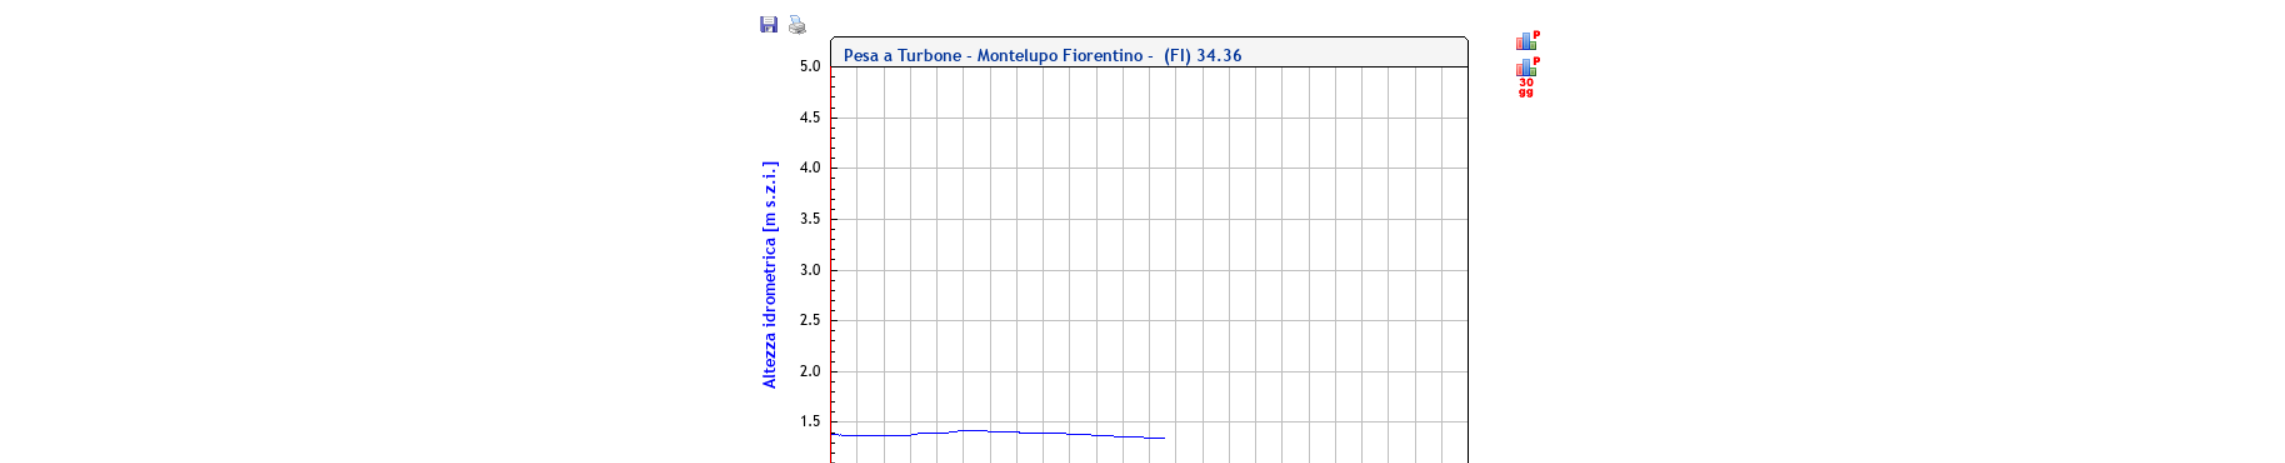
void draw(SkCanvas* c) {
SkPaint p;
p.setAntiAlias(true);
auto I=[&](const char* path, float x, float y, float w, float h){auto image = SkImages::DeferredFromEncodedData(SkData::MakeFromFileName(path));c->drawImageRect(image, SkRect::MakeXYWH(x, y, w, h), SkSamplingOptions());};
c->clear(0xffffffff);
I("1.png",759,14,48,22);
I("2.png",762,36,707,427);
I("3.png",1516,29,25,22);
I("4.png",1516,56,25,42);
I("5.png",830,66,2,397);
}
